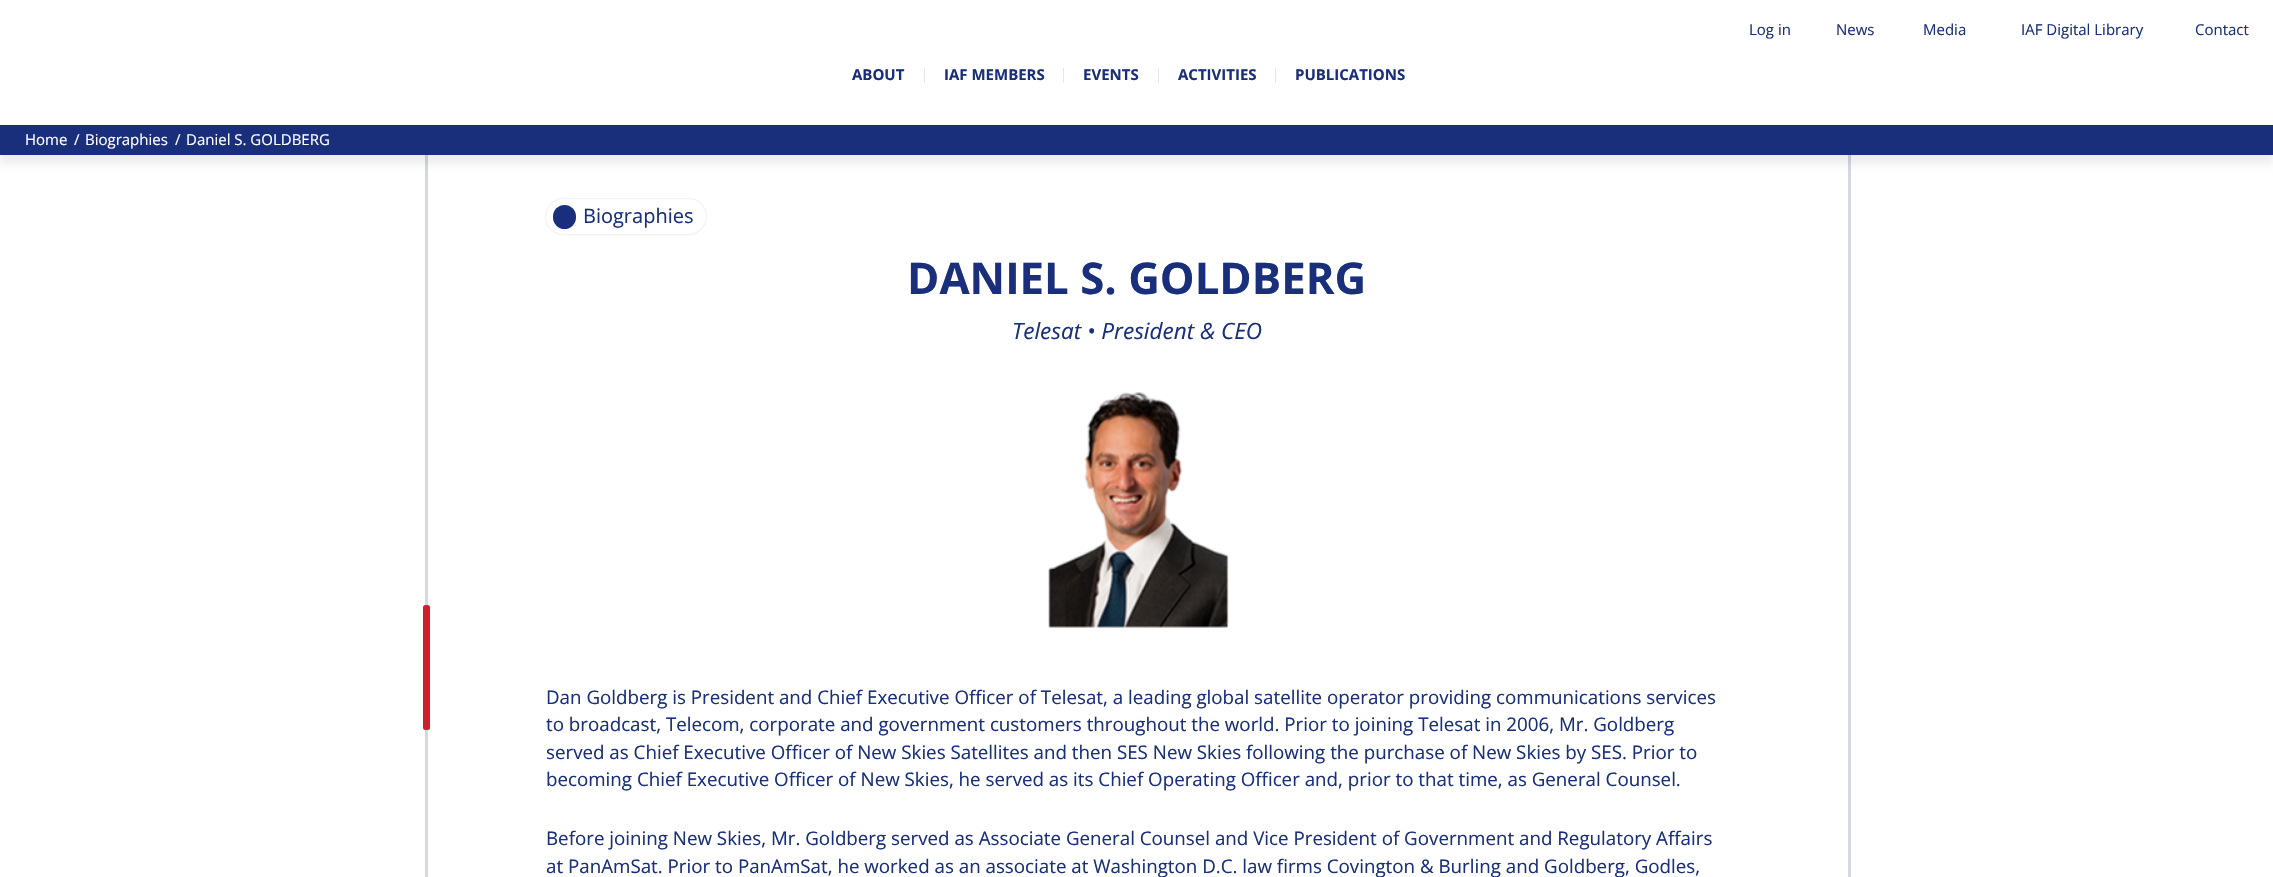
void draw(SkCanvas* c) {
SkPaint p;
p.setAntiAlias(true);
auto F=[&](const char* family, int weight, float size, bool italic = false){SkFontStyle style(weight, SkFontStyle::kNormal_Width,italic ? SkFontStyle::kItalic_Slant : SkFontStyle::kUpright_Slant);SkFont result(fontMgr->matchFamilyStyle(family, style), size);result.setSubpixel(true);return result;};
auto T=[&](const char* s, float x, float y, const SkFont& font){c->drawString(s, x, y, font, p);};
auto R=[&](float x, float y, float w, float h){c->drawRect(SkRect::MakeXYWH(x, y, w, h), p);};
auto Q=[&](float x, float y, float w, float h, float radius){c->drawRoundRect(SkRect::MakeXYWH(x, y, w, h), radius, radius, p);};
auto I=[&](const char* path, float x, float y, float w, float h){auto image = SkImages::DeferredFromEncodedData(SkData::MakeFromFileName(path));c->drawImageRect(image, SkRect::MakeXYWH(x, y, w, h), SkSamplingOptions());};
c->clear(0xffffffff);
auto f1 = F("Open Sans",400,15);
p.setColor(0xff192f7c);
T("Log in",1749,35,f1);
T("News",1836,35,f1);
T("Media",1923,35,f1);
T("IAF Digital Library",2021,35,f1);
T("Contact",2195,35,f1);
auto f2 = F("Open Sans",700,15);
T("ABOUT",852,80,f2);
p.setColor(0xffe6e7e8);
R(924,68,1,15);
p.setColor(0xff192f7c);
T("IAF MEMBERS",944,80,f2);
p.setColor(0xffe6e7e8);
R(1063,68,1,15);
p.setColor(0xff192f7c);
T("EVENTS",1083,80,f2);
p.setColor(0xffe6e7e8);
R(1158,68,1,15);
p.setColor(0xff192f7c);
T("ACTIVITIES",1178,80,f2);
p.setColor(0xffe6e7e8);
R(1275,68,1,15);
p.setColor(0xff192f7c);
T("PUBLICATIONS",1295,80,f2);
p.setColor(0xffd2d8e4);
R(1848,155,3,722);
R(425,155,3,722);
p.setColor(0x12000000);
p.setMaskFilter(SkMaskFilter::MakeBlur(kNormal_SkBlurStyle, 4));
c->drawRect(SkRect::MakeXYWH(0,134,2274,30),p);
p.setMaskFilter(nullptr);
p.setColor(0xff192f7c);
R(0,125,2273,30);
p.setColor(0xffffffff);
T("Home",25,145,f1);
T("/",74,145,f1);
T("Biographies",85,145,f1);
T("/",175,145,f1);
T("Daniel S. GOLDBERG",186,145,f1);
p.setColor(0xffcf1e2e);
Q(423,605,7,125,2.5);
p.setColor(0x29000000);
p.setMaskFilter(SkMaskFilter::MakeBlur(kNormal_SkBlurStyle, 1));
c->drawRoundRect(SkRect::MakeXYWH(546,199,160,35),17.5,17.5,p);
p.setMaskFilter(nullptr);
p.setColor(0xffffffff);
Q(546,199,160,35,17.5);
p.setColor(0xff192f7c);
Q(553,205,23,24,11.5);
auto f3 = F("Open Sans",400,20);
T("Biographies",583,223,f3);
auto f4 = F("Open Sans",700,43.75);
T("DANIEL S. GOLDBERG",907,294,f4);
auto f5 = F("Open Sans",400,22.5,true);
T("Telesat • President & CEO",1012,339,f5);
I("1.png",1048,392,181,236);
auto f6 = F("Open Sans",400,18.75);
T("Dan Goldberg is President and Chief Executive Officer of Telesat, a leading global satellite operator providing communications services",546,704,f6);
T("to broadcast, Telecom, corporate and government customers throughout the world. Prior to joining Telesat in 2006, Mr. Goldberg",546,731,f6);
T("served as Chief Executive Officer of New Skies Satellites and then SES New Skies following the purchase of New Skies by SES. Prior to",546,759,f6);
T("becoming Chief Executive Officer of New Skies, he served as its Chief Operating Officer and, prior to that time, as General Counsel.",546,786,f6);
T("Before joining New Skies, Mr. Goldberg served as Associate General Counsel and Vice President of Government and Regulatory Affairs",546,845,f6);
T("at PanAmSat. Prior to PanAmSat, he worked as an associate at Washington D.C. law firms Covington & Burling and Goldberg, Godles,",546,873,f6);
}
